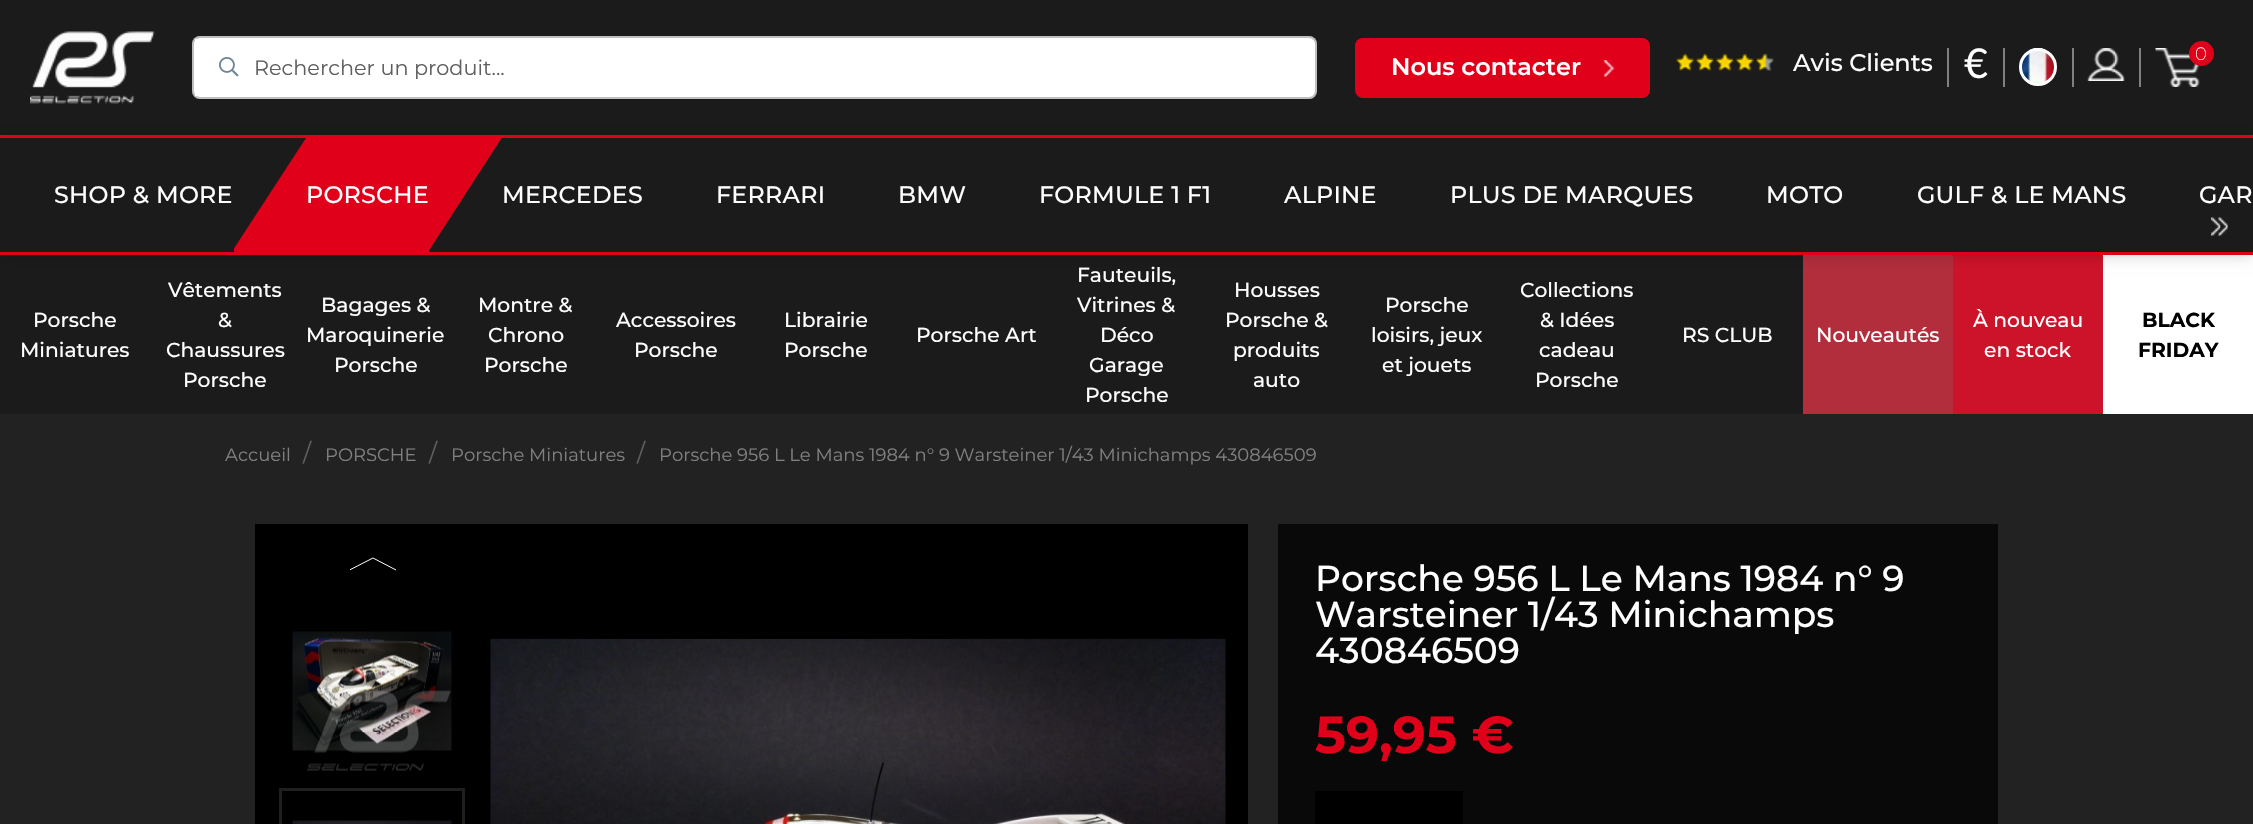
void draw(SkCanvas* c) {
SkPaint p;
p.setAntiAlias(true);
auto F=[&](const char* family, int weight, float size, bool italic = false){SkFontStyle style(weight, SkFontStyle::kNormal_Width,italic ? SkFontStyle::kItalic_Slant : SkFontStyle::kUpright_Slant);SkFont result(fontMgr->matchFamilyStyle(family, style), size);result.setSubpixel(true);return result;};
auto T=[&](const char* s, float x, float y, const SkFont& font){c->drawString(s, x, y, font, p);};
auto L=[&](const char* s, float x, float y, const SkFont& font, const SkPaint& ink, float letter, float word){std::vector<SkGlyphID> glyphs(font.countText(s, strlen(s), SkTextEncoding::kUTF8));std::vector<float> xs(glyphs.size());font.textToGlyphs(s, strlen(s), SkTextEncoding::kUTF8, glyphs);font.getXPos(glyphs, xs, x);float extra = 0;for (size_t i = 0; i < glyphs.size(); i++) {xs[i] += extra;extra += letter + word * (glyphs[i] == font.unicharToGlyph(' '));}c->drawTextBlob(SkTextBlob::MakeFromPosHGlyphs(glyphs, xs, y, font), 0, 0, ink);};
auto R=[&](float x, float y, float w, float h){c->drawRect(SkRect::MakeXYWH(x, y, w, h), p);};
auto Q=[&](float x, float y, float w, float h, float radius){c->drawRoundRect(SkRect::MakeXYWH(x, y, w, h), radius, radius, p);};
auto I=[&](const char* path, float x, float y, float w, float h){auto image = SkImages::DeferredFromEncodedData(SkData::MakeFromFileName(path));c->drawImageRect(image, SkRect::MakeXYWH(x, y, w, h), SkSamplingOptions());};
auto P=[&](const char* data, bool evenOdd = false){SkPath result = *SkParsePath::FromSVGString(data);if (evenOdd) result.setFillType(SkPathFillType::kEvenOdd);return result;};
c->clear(0xff222222);
p.setColor(0xff1b1b1b);
R(0,0,2253,135);
I("1.png",30,31,125,73);
p.setColor(0xffffffff);
Q(192,36,1125,63,8);
p.setStroke(true);
p.setStrokeWidth(2);
p.setColor(0x40000000);
c->drawRoundRect(SkRect::MakeXYWH(193,37,1123,61),7,7,p);
p.setStroke(false);
p.setColor(0xffffffff);
R(195,39,2,57);
I("2.png",219,57,20,20);
auto f1 = F("Montserrat",400,20.8);
p.setColor(0xff5f5f5f);
T("Rechercher un produit...",254,75,f1);
p.setColor(0xffe0001a);
Q(1355,38,295,60,8);
auto f2 = F("Montserrat",600,24);
p.setColor(0xffffffff);
T("Nous contacter",1391,75,f2);
I("3.png",1604,60,11,17);
p.setColor(0xff808080);
R(1947,48,2,39);
I("4.png",1675,53,99,18);
auto f3 = F("Montserrat",500,24);
p.setColor(0xffffffff);
T("Avis Clients",1793,71,f3);
p.setColor(0xff808080);
R(2003,48,2,39);
auto f4 = F("Lato",400,41);
p.setColor(0xffffffff);
T("€",1964,78,f4);
p.setColor(0xff808080);
R(2072,48,2,39);
I("5.png",2018,48,39,38);
p.setStroke(true);
p.setStrokeWidth(3);
p.setColor(0xffffffff);
c->drawCircle(2038,67,17.5,p);
p.setStroke(false);
p.setColor(0xff808080);
R(2139,48,2,39);
I("6.png",2087,48,38,33);
I("7.png",2155,48,45,39);
p.setColor(0xffe0001a);
c->drawCircle(2201.5,53.5,12.5,p);
auto f5 = F("Montserrat",200,18);
p.setColor(0xffffffff);
T("0",2195,60,f5);
p.setColor(0xff1b1b1b);
R(0,255,1803,159);
p.setColor(0xffb22e3d);
R(1803,255,150,159);
p.setColor(0xffcd1329);
R(1953,255,150,159);
p.setColor(0xffffffff);
R(2103,255,150,159);
p.setColor(0x30000000);
p.setMaskFilter(SkMaskFilter::MakeBlur(kNormal_SkBlurStyle, 7.5));
c->drawRect(SkRect::MakeXYWH(0,135,2253,120),p);
p.setMaskFilter(nullptr);
p.setColor(0xff1b1b1b);
R(0,138,2253,114);
p.setColor(0xffe0001a);
R(0,135,2253,3);
R(0,252,2253,3);
auto f6 = F("Montserrat",500,23.75);
p.setColor(0xffffffff);
L("SHOP & MORE",54,203,f6,p,.25,0);
p.setColor(0xffe0001a);
R(234,138,195,114);
p.setColor(0xff1b1b1b);
c->drawPath(P("M233 138v112l73-112z"),p);
p.setColor(0xffffffff);
L("PORSCHE",306,203,f6,p,.25,0);
p.setColor(0xffe0001a);
c->drawPath(P("M428 138v114l73-113v-1z"),p);
p.setColor(0xffffffff);
L("MERCEDES",502,203,f6,p,.25,0);
L("FERRARI",716,203,f6,p,.25,0);
L("BMW",898,203,f6,p,.25,0);
L("FORMULE 1 F1",1039,203,f6,p,.25,0);
L("ALPINE",1284,203,f6,p,.25,0);
L("PLUS DE MARQUES",1450,203,f6,p,.25,0);
L("MOTO",1766,203,f6,p,.25,0);
L("GULF & LE MANS",1917,203,f6,p,.25,0);
L("GAR",2199,203,f6,p,.25,0);
I("8.png",2211,217,17,19);
auto f7 = F("Montserrat",500,20.25);
T("Porsche",33,327,f7);
T("Miniatures",20,357,f7);
T("Vêtements",168,297,f7);
T("&",218,327,f7);
T("Chaussures",166,357,f7);
T("Porsche",183,387,f7);
T("Bagages &",321,312,f7);
T("Maroquinerie",306,342,f7);
T("Porsche",334,372,f7);
T("Montre &",478,312,f7);
T("Chrono",488,342,f7);
T("Porsche",484,372,f7);
T("Accessoires",616,327,f7);
T("Porsche",634,357,f7);
T("Librairie",784,327,f7);
T("Porsche",784,357,f7);
T("Porsche Art",916,342,f7);
T("Fauteuils,",1077,282,f7);
T("Vitrines &",1077,312,f7);
T("Déco",1100,342,f7);
T("Garage",1089,372,f7);
T("Porsche",1085,402,f7);
T("Housses",1234,297,f7);
T("Porsche &",1225,327,f7);
T("produits",1233,357,f7);
T("auto",1253,387,f7);
T("Porsche",1385,312,f7);
T("loisirs, jeux",1371,342,f7);
T("et jouets",1382,372,f7);
T("Collections",1520,297,f7);
T("& Idées",1540,327,f7);
T("cadeau",1539,357,f7);
T("Porsche",1535,387,f7);
T("RS CLUB",1682,342,f7);
T("Nouveautés",1816,342,f7);
T("À nouveau",1973,327,f7);
T("en stock",1984,357,f7);
auto f8 = F("Montserrat",700,20.25);
p.setColor(0xff000000);
T("BLACK",2142,327,f8);
T("FRIDAY",2138,357,f8);
auto f9 = F("Montserrat",400,18);
p.setColor(0xff808080);
T("Accueil",225,461,f9);
auto f10 = F("Montserrat",400,24);
p.setColor(0xff5f5f5f);
T("/",303,461,f10);
p.setColor(0xff808080);
T("PORSCHE",325,461,f9);
p.setColor(0xff5f5f5f);
T("/",429,461,f10);
p.setColor(0xff808080);
T("Porsche Miniatures",451,461,f9);
p.setColor(0xff5f5f5f);
T("/",637,461,f10);
p.setColor(0xff808080);
T("Porsche 956 L Le Mans 1984 n° 9 Warsteiner 1/43 Minichamps 430846509",659,461,f9);
p.setColor(0xff000000);
R(255,524,993,300);
c->save();
c->clipRect(SkRect::MakeXYWH(350,551,46,27));
p.setStroke(true);
p.setStrokeWidth(1);
p.setColor(0xffffffff);
c->drawPath(P("M349.5 570l23.5-12l23 12"),p);
c->restore();
I("9.png",292,631,160,140);
p.setStrokeWidth(3);
p.setColor(0xff1f1f1f);
c->drawRect(SkRect::MakeXYWH(280.5,789.5,183,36),p);
I("10.png",292,820,160,4);
I("11.png",490,638,736,186);
p.setStroke(false);
p.setColor(0xff090909);
R(1278,524,720,300);
auto f11 = F("Montserrat",500,36);
p.setColor(0xffffffff);
T("Porsche 956 L Le Mans 1984 n° 9",1315,591,f11);
T("Warsteiner 1/43 Minichamps",1315,627,f11);
T("430846509",1315,663,f11);
auto f12 = F("Montserrat",700,52);
p.setColor(0xffe0001a);
T("59,95 €",1315,753,f12);
p.setColor(0xff000000);
R(1315,791,148,33);
}
